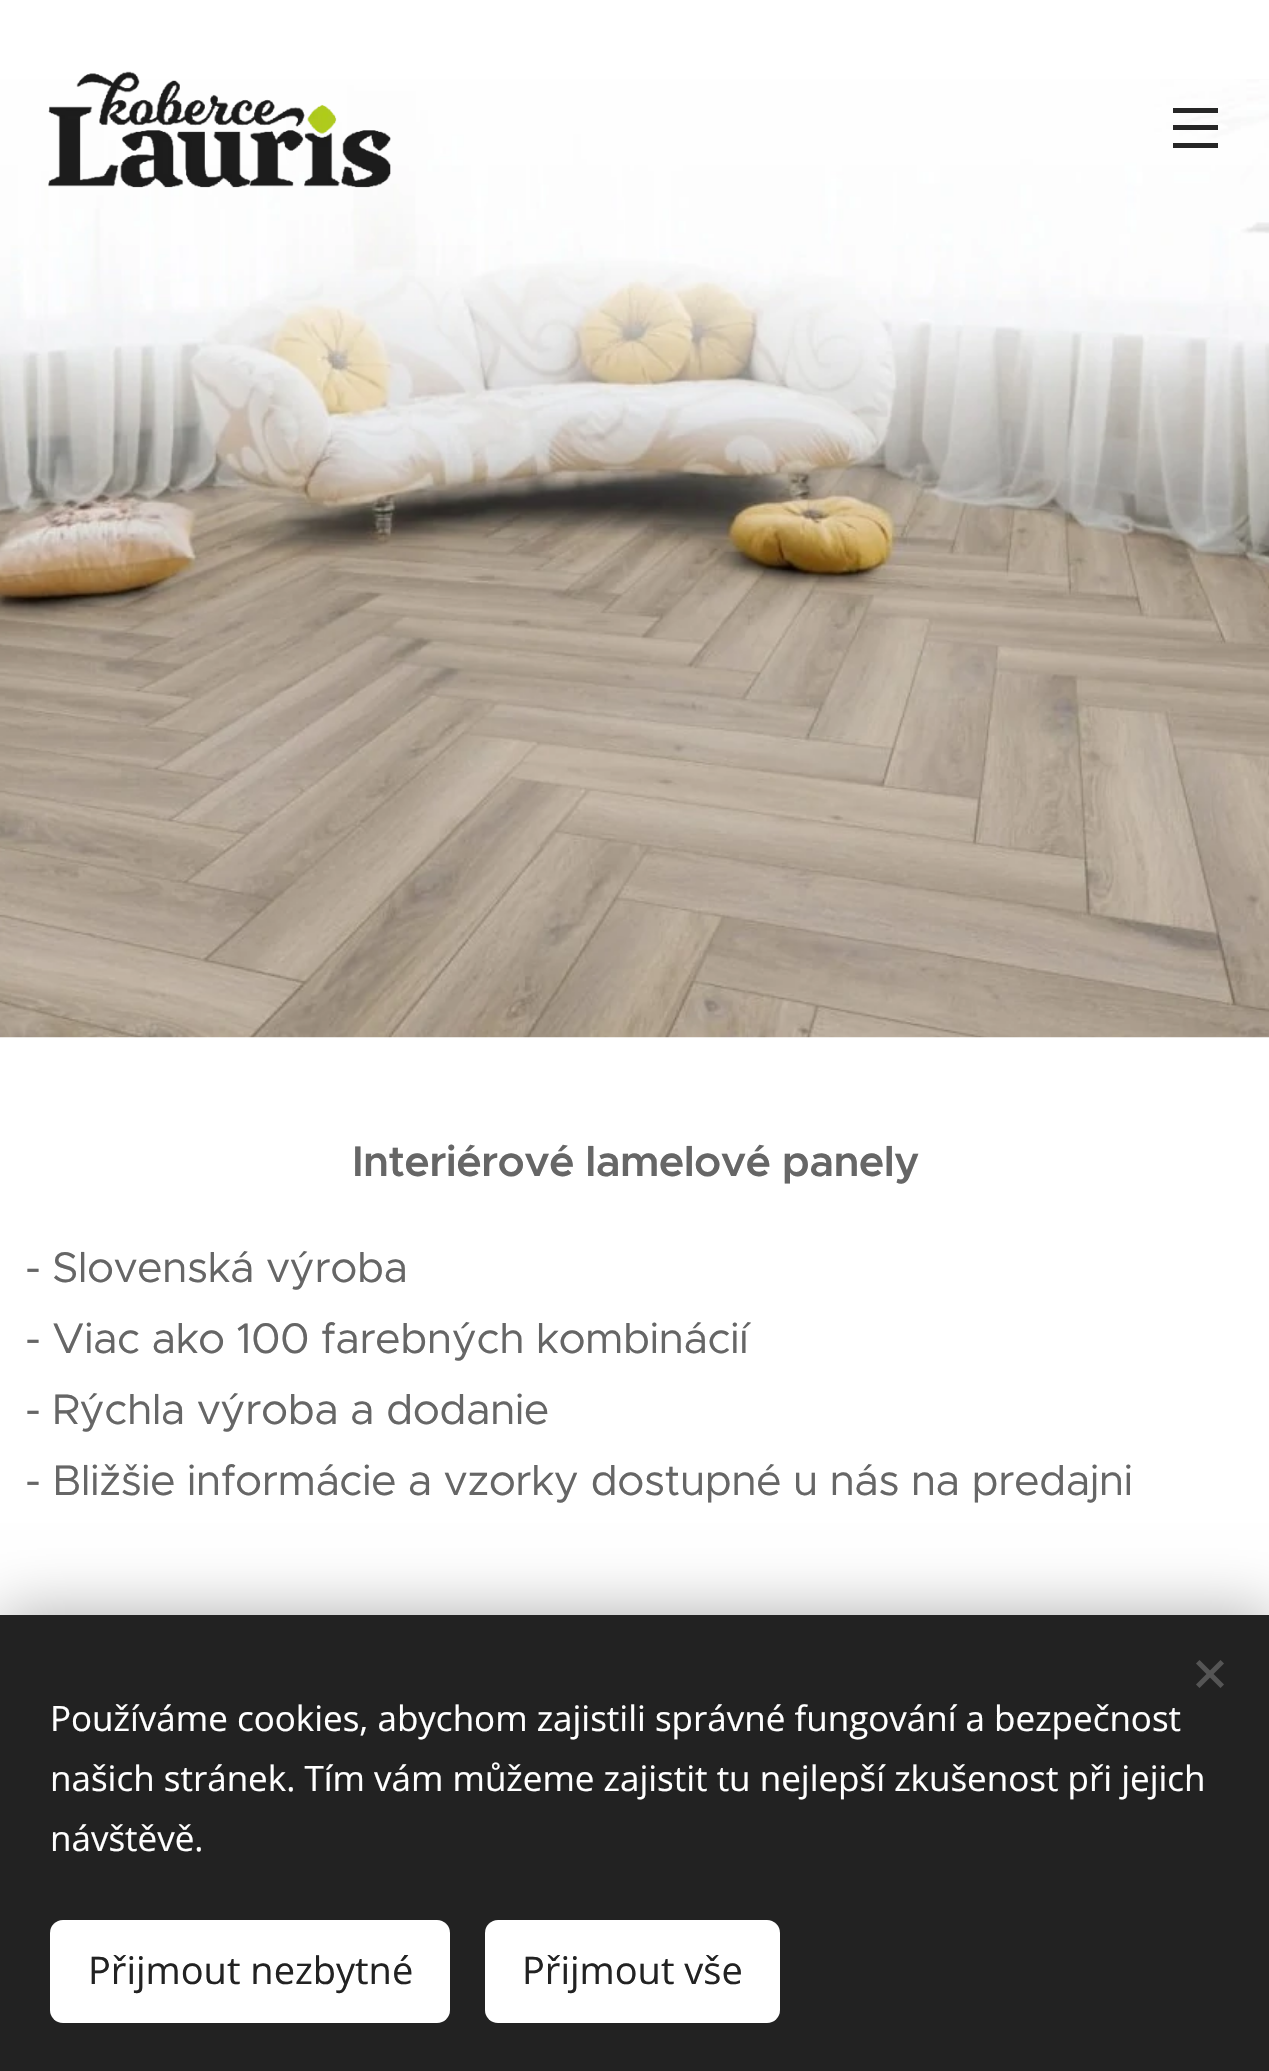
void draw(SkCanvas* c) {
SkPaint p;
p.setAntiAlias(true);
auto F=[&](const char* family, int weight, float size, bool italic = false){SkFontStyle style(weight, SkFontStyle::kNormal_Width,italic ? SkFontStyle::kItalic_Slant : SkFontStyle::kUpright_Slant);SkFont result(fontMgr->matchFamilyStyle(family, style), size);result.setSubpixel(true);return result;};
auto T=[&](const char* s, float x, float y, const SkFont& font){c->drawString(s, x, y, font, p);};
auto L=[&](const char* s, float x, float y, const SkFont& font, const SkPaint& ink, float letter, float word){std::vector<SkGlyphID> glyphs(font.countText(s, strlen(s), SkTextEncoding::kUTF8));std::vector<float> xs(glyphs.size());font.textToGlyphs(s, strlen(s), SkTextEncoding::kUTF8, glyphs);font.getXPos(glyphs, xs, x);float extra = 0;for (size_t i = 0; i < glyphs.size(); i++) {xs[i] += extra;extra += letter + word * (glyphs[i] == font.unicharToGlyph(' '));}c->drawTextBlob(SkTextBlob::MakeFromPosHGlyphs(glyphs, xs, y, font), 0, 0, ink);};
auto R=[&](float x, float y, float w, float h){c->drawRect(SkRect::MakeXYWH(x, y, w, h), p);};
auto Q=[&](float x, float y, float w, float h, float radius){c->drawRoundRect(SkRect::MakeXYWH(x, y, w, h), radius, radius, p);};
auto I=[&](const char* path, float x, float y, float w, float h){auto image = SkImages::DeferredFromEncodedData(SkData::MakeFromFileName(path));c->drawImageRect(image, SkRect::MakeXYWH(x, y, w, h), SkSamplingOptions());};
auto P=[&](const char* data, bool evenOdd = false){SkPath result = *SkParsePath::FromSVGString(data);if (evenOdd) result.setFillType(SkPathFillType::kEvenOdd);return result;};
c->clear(0xffffffff);
I("2.png",0,79,1269,959);
I("1.png",48,71,343,117);
p.setColor(0xd9000000);
R(1173,125,45,5);
R(1173,108,45,5);
p.setColor(0xff262626);
R(1173,143,45,5);
auto f1 = F("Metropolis",600,43);
p.setColor(0xff666666);
L("Interiérové lamelové panely",352,1176,f1,p,-.65,0);
auto f2 = F("Metropolis",400,43);
L("- Slovenská výroba",25,1282,f2,p,-.65,0);
L("- Viac ako 100 farebných kombinácií",25,1353,f2,p,-.65,0);
L("- Rýchla výroba a dodanie",25,1424,f2,p,-.65,0);
L("- Bližšie informácie a vzorky dostupné u nás na predajni",25,1495,f2,p,-.65,0);
p.setColor(0x54000000);
p.setMaskFilter(SkMaskFilter::MakeBlur(kNormal_SkBlurStyle, 31));
c->drawRect(SkRect::MakeXYWH(0,1615,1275,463),p);
p.setMaskFilter(nullptr);
p.setColor(0xff222222);
R(0,1615,1269,456);
p.setColor(0xff555555);
c->drawPath(P("M1196 1684.5l24.5-24.5l3.5 3.5l-24.5 24.5z"),p);
c->drawPath(P("M1199.5 1660l24.5 24.5l-3.5 3.5l-24.5-24.5z"),p);
auto f3 = F("Open Sans",400,35);
p.setColor(0xffffffff);
T("Používáme cookies, abychom zajistili správné fungování a bezpečnost",50,1731,f3);
T("našich stránek. Tím vám můžeme zajistit tu nejlepší zkušenost při jejich",50,1791,f3);
T("návštěvě.",50,1851,f3);
Q(50,1920,400,103,13);
auto f4 = F("Open Sans",400,38);
p.setColor(0xff222222);
T("Přijmout nezbytné",88,1984,f4);
p.setColor(0xffffffff);
Q(485,1920,295,103,13);
p.setColor(0xff222222);
T("Přijmout vše",522,1984,f4);
}
